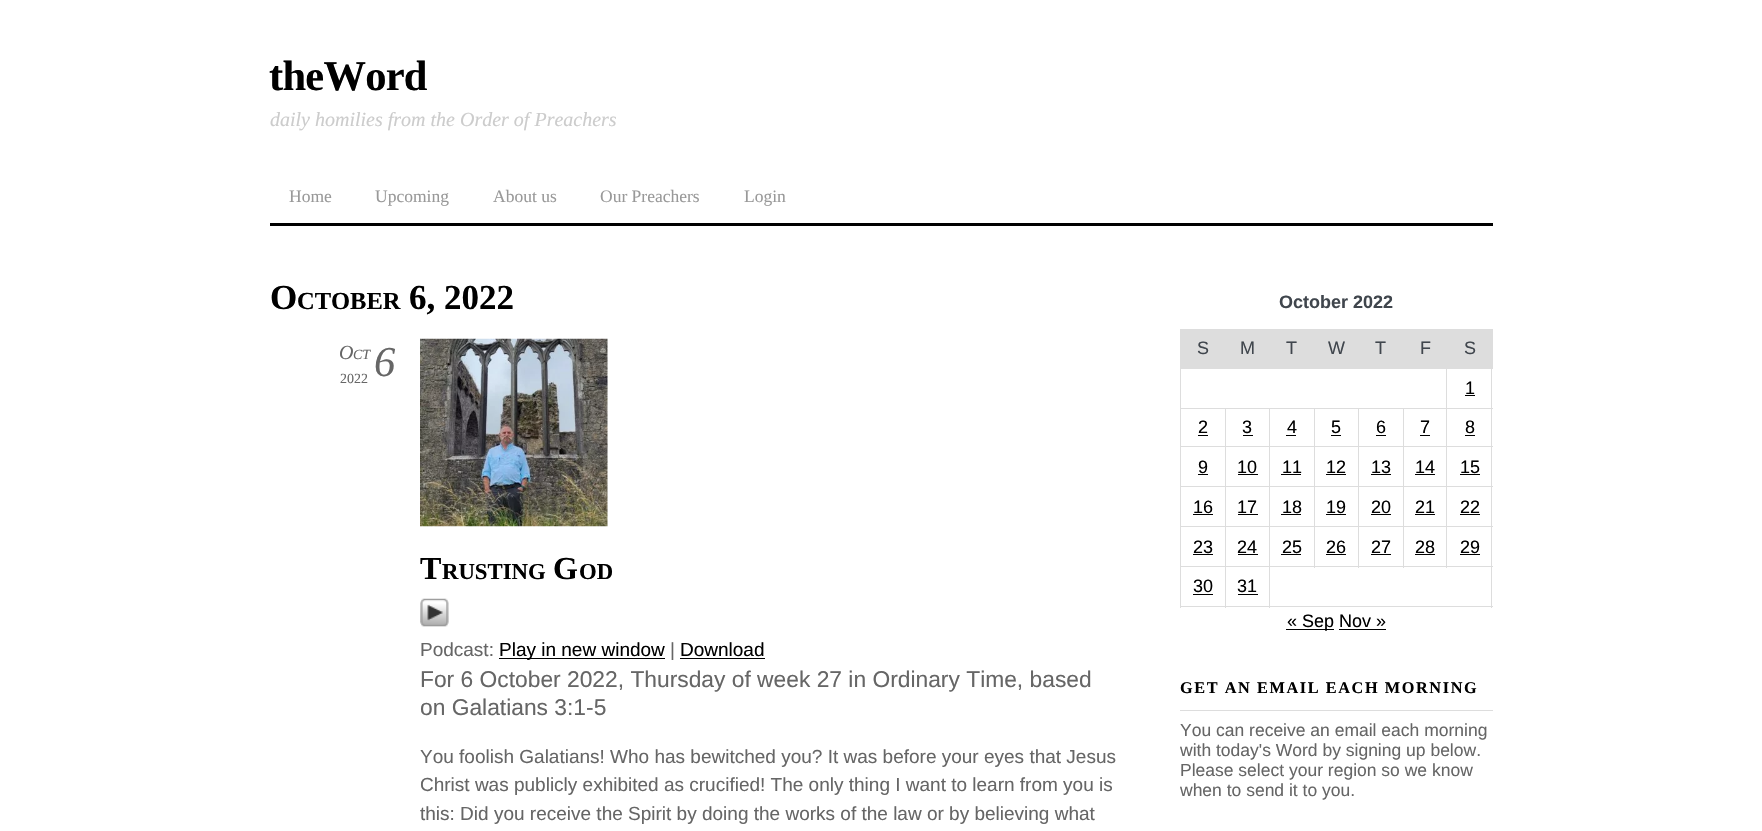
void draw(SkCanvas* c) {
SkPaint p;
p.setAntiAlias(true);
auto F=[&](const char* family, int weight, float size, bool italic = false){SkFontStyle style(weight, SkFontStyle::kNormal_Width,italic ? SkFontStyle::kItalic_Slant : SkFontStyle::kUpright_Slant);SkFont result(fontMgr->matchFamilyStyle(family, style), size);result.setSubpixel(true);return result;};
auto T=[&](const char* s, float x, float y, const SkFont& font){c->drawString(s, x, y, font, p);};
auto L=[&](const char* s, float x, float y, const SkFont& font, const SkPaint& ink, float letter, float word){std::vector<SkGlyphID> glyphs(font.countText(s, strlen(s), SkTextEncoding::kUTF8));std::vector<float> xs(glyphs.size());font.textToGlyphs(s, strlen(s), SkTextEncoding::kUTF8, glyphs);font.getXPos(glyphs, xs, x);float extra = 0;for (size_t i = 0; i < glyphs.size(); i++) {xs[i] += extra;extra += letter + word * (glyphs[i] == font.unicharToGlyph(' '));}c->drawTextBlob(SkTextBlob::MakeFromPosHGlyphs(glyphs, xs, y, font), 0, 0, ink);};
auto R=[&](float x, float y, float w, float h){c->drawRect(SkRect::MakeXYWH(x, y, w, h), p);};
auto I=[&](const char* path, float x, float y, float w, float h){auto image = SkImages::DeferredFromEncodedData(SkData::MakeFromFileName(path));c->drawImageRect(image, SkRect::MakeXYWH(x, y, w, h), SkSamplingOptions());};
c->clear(0xffffffff);
p.setColor(0xff000000);
R(270,223,1223,3);
auto f1 = F("Liberation Serif",700,42.5);
L("theWord",269,90,f1,p,-.75,0);
auto f2 = F("Liberation Serif",400,20,true);
p.setColor(0xffcccccc);
T("daily homilies from the Order of Preachers",270,126,f2);
auto f3 = F("Liberation Serif",400,17.5);
p.setColor(0xff999999);
T("Home",289,202,f3);
T("Upcoming",375,202,f3);
T("About us",493,202,f3);
T("Our Preachers",600,202,f3);
T("Login",744,202,f3);
auto f4 = F("Liberation Serif",700,35);
p.setColor(0xff000000);
T("O",270,309,f4);
auto f5 = F("Liberation Serif",700,24.5);
T("CTOBER",297,309,f5);
T("6, 2022",409,309,f4);
I("1.png",420,338,188,189);
p.setColor(0xff666666);
T("O",339,359,f2);
auto f6 = F("Liberation Serif",400,14,true);
T("CT",353,359,f6);
auto f7 = F("Liberation Serif",400,42.5,true);
T("6",374,376,f7);
auto f8 = F("Liberation Serif",400,14);
T("2022",340,383,f8);
auto f9 = F("Liberation Serif",700,32);
p.setColor(0xff000000);
T("T",420,579,f9);
auto f10 = F("Liberation Serif",700,22.75);
T("RUSTING",442,579,f10);
T("G",553,579,f9);
T("OD",579,579,f10);
I("2.png",420,598,29,29);
auto f11 = F("Liberation Sans",400,19);
p.setColor(0xff666666);
T("Podcast:",420,656,f11);
p.setColor(0xff000000);
R(499,658,166,1);
T("Play in new window",499,656,f11);
p.setColor(0xff666666);
T("|",670,656,f11);
p.setColor(0xff000000);
T("Download",680,656,f11);
R(680,658,85,1);
auto f12 = F("Liberation Sans",400,22.8);
p.setColor(0xff666666);
T("For 6 October 2022, Thursday of week 27 in Ordinary Time, based",420,687,f12);
T("on Galatians 3:1-5",420,715,f12);
T("You foolish Galatians! Who has bewitched you? It was before your eyes that Jesus",420,763,f11);
T("Christ was publicly exhibited as crucified! The only thing I want to learn from you is",420,791,f11);
T("this: Did you receive the Spirit by doing the works of the law or by believing what",420,820,f11);
auto f13 = F("Liberation Sans",700,18);
p.setColor(0xff40464d);
T("October 2022",1279,308,f13);
p.setColor(0xffdddddd);
R(1181,330,44,38);
R(1225,329,268,39);
R(1180,329,46,1);
R(1446,368,47,1);
R(1446,408,47,1);
R(1446,446,47,1);
R(1446,486,47,1);
R(1446,526,47,1);
R(1269,566,224,1);
R(1446,526,1,42);
R(1403,526,45,1);
R(1446,486,1,42);
R(1403,486,45,1);
R(1446,446,1,42);
R(1403,446,45,1);
R(1446,408,1,40);
R(1403,408,45,1);
R(1446,368,1,41);
R(1180,368,268,1);
R(1403,526,1,42);
R(1358,526,46,1);
R(1403,486,1,42);
R(1358,486,46,1);
R(1403,446,1,42);
R(1358,446,46,1);
R(1403,408,1,40);
R(1358,408,46,1);
R(1358,526,1,42);
R(1314,526,45,1);
R(1358,486,1,42);
R(1314,486,45,1);
R(1358,446,1,42);
R(1314,446,45,1);
R(1358,408,1,40);
R(1314,408,45,1);
R(1314,526,1,42);
R(1269,526,46,1);
R(1314,486,1,42);
R(1269,486,46,1);
R(1314,446,1,42);
R(1269,446,46,1);
R(1314,408,1,40);
R(1269,408,46,1);
R(1491,566,1,42);
R(1269,606,224,1);
R(1269,566,1,42);
R(1225,566,45,1);
R(1269,526,1,42);
R(1225,526,45,1);
R(1269,486,1,42);
R(1225,486,45,1);
R(1269,446,1,42);
R(1225,446,45,1);
R(1269,408,1,40);
R(1225,408,45,1);
R(1225,606,45,1);
R(1225,566,1,42);
R(1180,566,46,1);
R(1225,526,1,42);
R(1180,526,46,1);
R(1225,486,1,42);
R(1180,486,46,1);
R(1225,446,1,42);
R(1180,446,46,1);
R(1225,408,1,40);
R(1180,408,46,1);
R(1180,606,46,1);
R(1180,566,1,42);
R(1180,526,1,42);
R(1180,486,1,42);
R(1180,446,1,42);
R(1180,408,1,40);
R(1180,368,1,41);
R(1180,329,1,40);
auto f14 = F("Liberation Sans",400,18);
p.setColor(0xff40464d);
T("S",1197,354,f14);
T("M",1240,354,f14);
T("T",1286,354,f14);
T("W",1328,354,f14);
T("T",1375,354,f14);
T("F",1420,354,f14);
T("S",1464,354,f14);
p.setColor(0xffdddddd);
R(1491,526,1,42);
R(1491,486,1,42);
R(1491,446,1,42);
R(1491,408,1,40);
R(1491,368,1,41);
p.setColor(0xff000000);
T("1",1465,394,f14);
R(1465,395,10,1);
T("2",1198,433,f14);
R(1198,435,10,1);
T("3",1242,433,f14);
R(1243,435,10,1);
T("4",1287,433,f14);
R(1286,435,10,1);
T("5",1331,433,f14);
R(1331,435,10,1);
T("6",1376,433,f14);
R(1376,435,10,1);
T("7",1420,433,f14);
R(1420,435,10,1);
T("8",1465,433,f14);
R(1465,435,10,1);
T("9",1198,473,f14);
R(1198,474,10,1);
T("10",1237,473,f14);
R(1238,474,20,1);
T("11",1282,473,f14);
R(1281,474,20,1);
T("12",1326,473,f14);
R(1326,474,20,1);
T("13",1371,473,f14);
R(1371,474,20,1);
T("14",1415,473,f14);
R(1415,474,20,1);
T("15",1460,473,f14);
R(1460,474,20,1);
T("16",1193,513,f14);
R(1193,514,20,1);
T("17",1237,513,f14);
R(1238,514,20,1);
T("18",1282,513,f14);
R(1281,514,20,1);
T("19",1326,513,f14);
R(1326,514,20,1);
T("20",1371,513,f14);
R(1371,514,20,1);
T("21",1415,513,f14);
R(1415,514,20,1);
T("22",1460,513,f14);
R(1460,514,20,1);
T("23",1193,553,f14);
R(1193,554,20,1);
T("24",1237,553,f14);
R(1238,554,20,1);
T("25",1282,553,f14);
R(1281,554,20,1);
T("26",1326,553,f14);
R(1326,554,20,1);
T("27",1371,553,f14);
R(1371,554,20,1);
T("28",1415,553,f14);
R(1415,554,20,1);
T("29",1460,553,f14);
R(1460,554,20,1);
T("30",1193,592,f14);
R(1193,594,20,1);
T("31",1237,592,f14);
R(1238,594,20,1);
R(1286,629,48,1);
T("« Sep Nov »",1287,627,f14);
R(1339,629,47,1);
p.setColor(0xffdddddd);
R(1180,710,313,1);
auto f15 = F("Liberation Serif",700,16.25);
p.setColor(0xff000000);
L("GET AN EMAIL EACH MORNING",1180,693,f15,p,1.6,0);
auto f16 = F("Liberation Sans",400,17.5);
p.setColor(0xff666666);
T("You can receive an email each morning",1180,736,f16);
T("with today's Word by signing up below.",1180,756,f16);
T("Please select your region so we know",1180,776,f16);
T("when to send it to you.",1180,796,f16);
}
